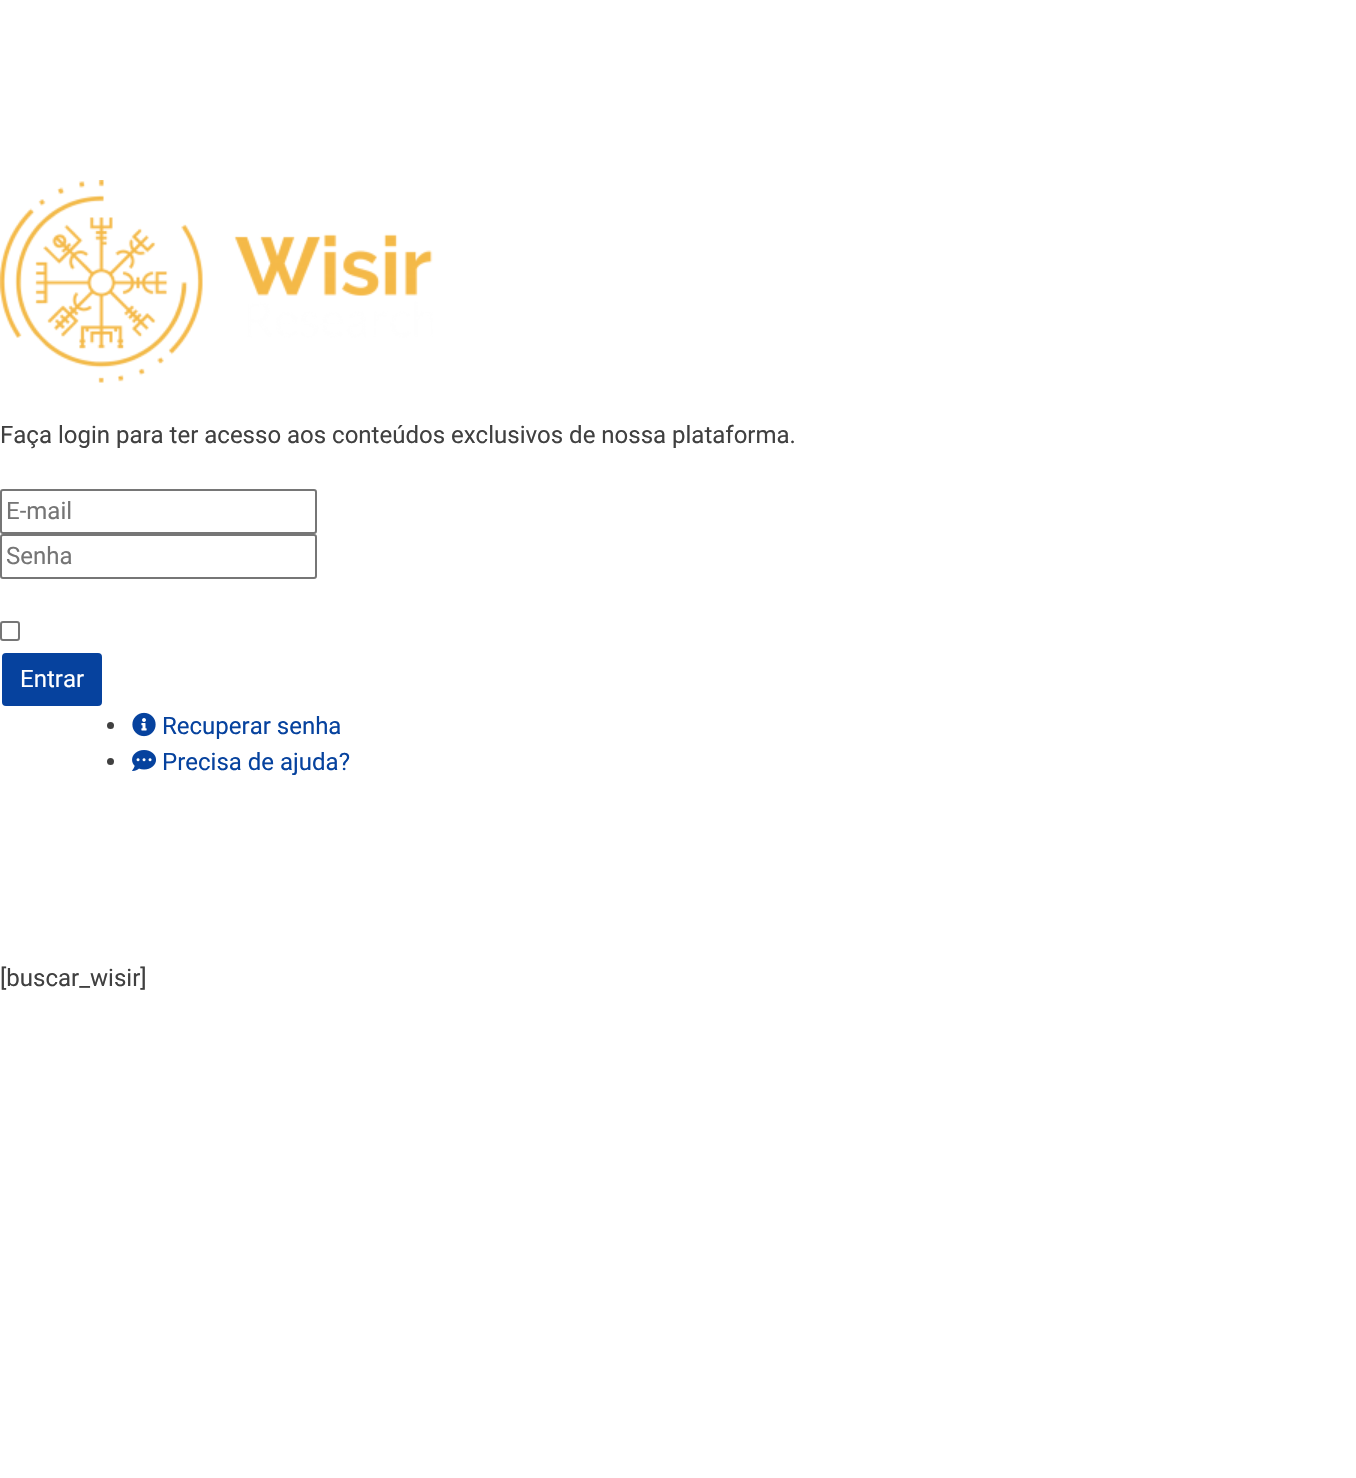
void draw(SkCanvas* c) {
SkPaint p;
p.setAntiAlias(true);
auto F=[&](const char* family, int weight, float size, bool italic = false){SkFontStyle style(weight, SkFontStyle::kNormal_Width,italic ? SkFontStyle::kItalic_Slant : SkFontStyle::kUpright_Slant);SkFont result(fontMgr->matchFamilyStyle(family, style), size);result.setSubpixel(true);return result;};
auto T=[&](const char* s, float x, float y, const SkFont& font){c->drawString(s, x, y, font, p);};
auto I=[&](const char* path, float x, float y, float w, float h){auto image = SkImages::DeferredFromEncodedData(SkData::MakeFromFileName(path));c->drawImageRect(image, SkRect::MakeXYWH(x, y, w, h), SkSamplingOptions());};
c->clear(0xffffffff);
I("1.png",0,180,433,203);
auto f1 = F("Roboto",400,24);
p.setColor(0xff404040);
T("Faça login para ter acesso aos conteúdos exclusivos de nossa plataforma.",0,443,f1);
p.setStroke(true);
p.setStrokeWidth(2);
p.setColor(0xff767676);
c->drawRoundRect(SkRect::MakeXYWH(1,490,315,43),2,2,p);
p.setStroke(false);
p.setColor(0xff757575);
T("E-mail",6,519,f1);
p.setStroke(true);
p.setColor(0xff767676);
c->drawRoundRect(SkRect::MakeXYWH(1,535,315,43),2,2,p);
p.setStroke(false);
p.setColor(0xff757575);
T("Senha",6,564,f1);
p.setStroke(true);
p.setColor(0xff767676);
c->drawRoundRect(SkRect::MakeXYWH(1,622,18,18),2,2,p);
p.setStroke(false);
p.setColor(0xff06429e);
c->drawRoundRect(SkRect::MakeXYWH(1,652,102,55),5,5,p);
p.setStroke(true);
p.setColor(0xffffffff);
c->drawRoundRect(SkRect::MakeXYWH(1,652,102,55),5,5,p);
p.setStroke(false);
T("Entrar",20,687,f1);
p.setColor(0xff404040);
c->drawCircle(110.5,725.5,3.5,p);
I("2.png",132,712,24,25);
p.setColor(0xff06429e);
T("Recuperar senha",162,734,f1);
p.setColor(0xff404040);
c->drawCircle(110.5,761.5,3.5,p);
I("3.png",132,750,24,21);
p.setColor(0xff06429e);
T("Precisa de ajuda?",162,770,f1);
p.setColor(0xff404040);
T("[buscar_wisir]",0,986,f1);
}
